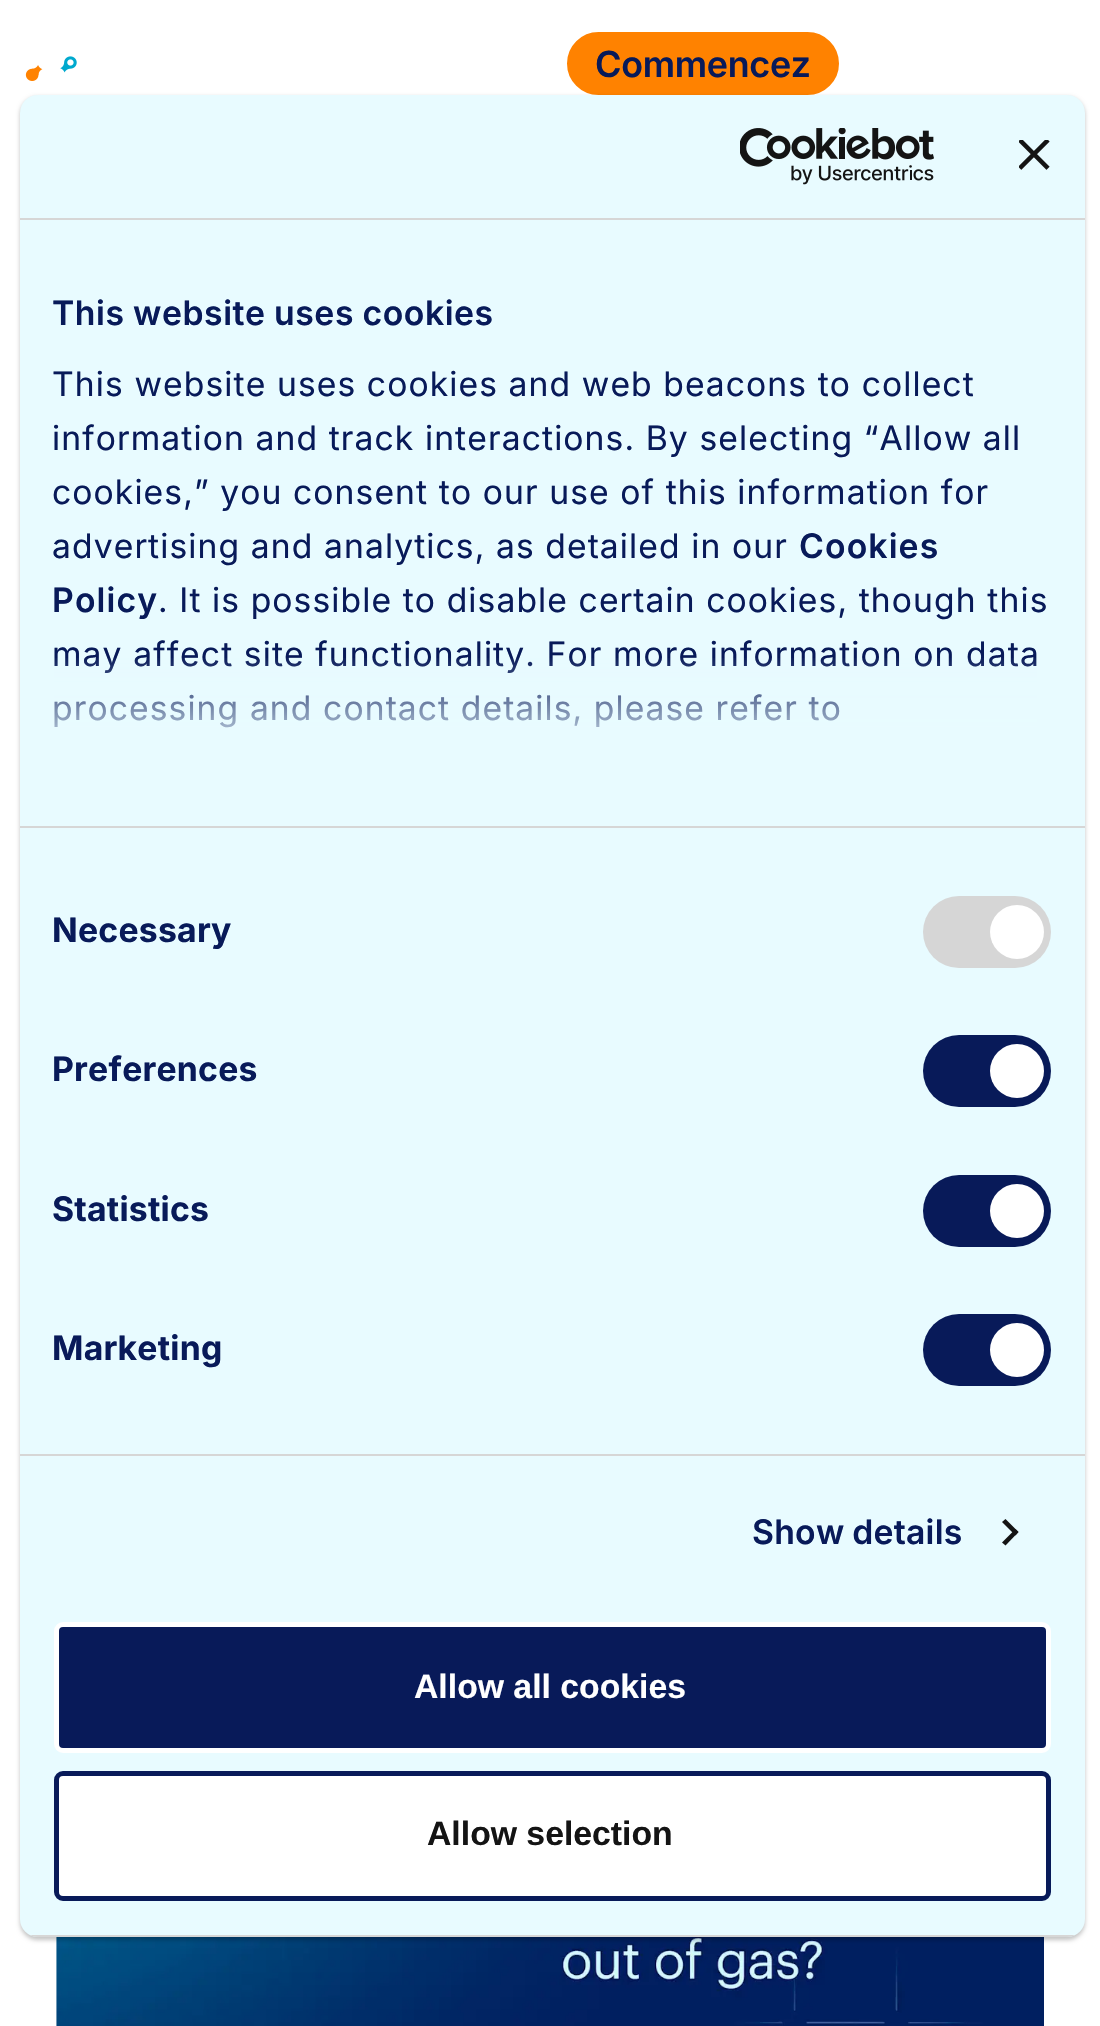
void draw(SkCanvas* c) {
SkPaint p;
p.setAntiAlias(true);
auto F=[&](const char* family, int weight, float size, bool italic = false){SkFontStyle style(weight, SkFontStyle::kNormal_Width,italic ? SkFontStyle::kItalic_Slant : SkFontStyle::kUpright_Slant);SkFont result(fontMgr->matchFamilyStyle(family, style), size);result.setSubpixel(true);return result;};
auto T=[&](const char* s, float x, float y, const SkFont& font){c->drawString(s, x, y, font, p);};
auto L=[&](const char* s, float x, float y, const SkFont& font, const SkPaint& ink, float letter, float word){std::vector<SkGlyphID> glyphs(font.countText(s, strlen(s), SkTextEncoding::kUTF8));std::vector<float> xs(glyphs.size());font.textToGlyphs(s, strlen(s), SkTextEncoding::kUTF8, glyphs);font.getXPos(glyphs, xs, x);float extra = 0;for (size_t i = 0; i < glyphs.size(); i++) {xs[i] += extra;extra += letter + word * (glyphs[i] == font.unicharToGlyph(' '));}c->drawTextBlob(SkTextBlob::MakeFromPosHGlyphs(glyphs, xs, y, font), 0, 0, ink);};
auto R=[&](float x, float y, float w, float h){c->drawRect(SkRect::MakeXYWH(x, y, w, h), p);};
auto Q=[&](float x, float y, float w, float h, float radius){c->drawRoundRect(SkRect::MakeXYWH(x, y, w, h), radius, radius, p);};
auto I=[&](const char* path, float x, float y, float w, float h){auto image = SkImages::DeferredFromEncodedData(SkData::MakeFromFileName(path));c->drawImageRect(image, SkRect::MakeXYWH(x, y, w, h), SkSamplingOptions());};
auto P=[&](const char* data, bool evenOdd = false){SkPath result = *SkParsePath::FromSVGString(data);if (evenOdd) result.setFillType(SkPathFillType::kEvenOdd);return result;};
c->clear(0xffffffff);
I("1.png",25,56,52,25);
p.setColor(0xffff8200);
c->drawRoundRect(SkRect::MakeXYWH(568,33,270,61),30.5,30.5,p);
p.setStroke(true);
p.setStrokeWidth(2);
c->drawRoundRect(SkRect::MakeXYWH(568,33,270,61),30.5,30.5,p);
auto f1 = F("Inter",600,36);
p.setStroke(false);
p.setColor(0xff081a59);
L("Commencez",595,77,f1,p,-.25,0);
I("4.png",56,1937,988,89);
p.setColor(0x3b000000);
p.setMaskFilter(SkMaskFilter::MakeBlur(kNormal_SkBlurStyle, 2));
c->drawRoundRect(SkRect::MakeXYWH(20,97,1065,1843),18,18,p);
p.setMaskFilter(nullptr);
p.setColor(0xffe8fbff);
Q(20,95,1065,1842,18);
p.setColor(0xffd6d6d6);
R(20,218,1065,2);
I("2.png",740,128,194,57);
I("3.png",1019,140,31,30);
R(20,826,1065,2);
auto f2 = F("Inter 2",600,33.75);
p.setColor(0xff081a59);
L("This website uses cookies",52,325,f2,p,.55,-.5);
auto f3 = F("Inter",400,33.75);
L("This website uses cookies and web beacons to collect",52,396,f3,p,1.12,0);
L("information and track interactions. By selecting “Allow all",52,450,f3,p,1.12,0);
L("cookies,” you consent to our use of this information for",52,504,f3,p,1.12,0);
L("advertising and analytics, as detailed in our",52,558,f3,p,1.12,0);
L("Cookies",799,558,f2,p,1.12,0);
L("Policy",52,612,f2,p,1.12,0);
L(". It is possible to disable certain cookies, though this",158,612,f3,p,1.12,0);
L("may affect site functionality. For more information on data",52,666,f3,p,1.12,0);
L("processing and contact details, please refer to",52,720,f3,p,1.12,0);
{
const SkColor colors[] = {0xffe8fbff,0xcce8fbff,0x00e8fbff};
const float stops[] = {0,.5,1};
const SkPoint ends[] = {{537,825}, {537,656}};
p.setShader(SkGradientShader::MakeLinear(ends, colors, stops, 3, SkTileMode::kClamp));
p.setAlpha(255);
}
R(54,658,983,70);
p.setShader(nullptr);
p.setColor(0xffd6d6d6);
R(20,1454,1065,2);
auto f4 = F("Inter",700,33.75);
p.setColor(0xff081a59);
L("Necessary",52,942,f4,p,.25,0);
p.setColor(0xffd6d6d6);
Q(923,896,128,72,36);
p.setColor(0xffffffff);
c->drawCircle(1017,932,27,p);
p.setColor(0xff081a59);
L("Preferences",52,1081,f4,p,.25,0);
Q(923,1035,128,72,36);
p.setColor(0xffffffff);
c->drawCircle(1017,1071,27,p);
p.setColor(0xff081a59);
L("Statistics",52,1221,f4,p,.25,0);
Q(923,1175,128,72,36);
p.setColor(0xffffffff);
c->drawCircle(1017,1211,27,p);
p.setColor(0xff081a59);
L("Marketing",52,1360,f4,p,.25,0);
Q(923,1314,128,72,36);
p.setColor(0xffffffff);
c->drawCircle(1017,1350,27,p);
p.setColor(0xff081a59);
L("Show details",752,1544,f2,p,.25,-1);
p.setColor(0xff141414);
c->drawPath(P("M1005.5 1519l13 13l-3 3.5l-13.5-13.5z"),p);
c->drawPath(P("M1015.5 1529l3 3l-13 13.5l-3.5-3z"),p);
c->save();
c->clipPath(P("M38 95h1029c10 0 18 8 18 18v1806c0 10-8 18-18 18h-1029c-10 0-18-8-18-18v-1806c0-10 8-18 18-18z"),true);
p.setColor(0xffd6d6d6);
R(30,1935,1045,2);
c->restore();
p.setColor(0xff081a59);
c->drawRoundRect(SkRect::MakeXYWH(56.5,1624.5,992,126),6.5,6.5,p);
p.setStroke(true);
p.setStrokeWidth(5);
p.setColor(0xffffffff);
c->drawRoundRect(SkRect::MakeXYWH(56.5,1624.5,992,126),6.5,6.5,p);
auto f5 = F("Liberation Sans",700,33.75);
p.setStroke(false);
T("Allow all cookies",414,1698,f5);
c->drawRoundRect(SkRect::MakeXYWH(56.5,1773.5,992,125),6.5,6.5,p);
p.setStroke(true);
p.setColor(0xff081a59);
c->drawRoundRect(SkRect::MakeXYWH(56.5,1773.5,992,125),6.5,6.5,p);
p.setStroke(false);
p.setColor(0xff141414);
T("Allow selection",427,1845,f5);
}
